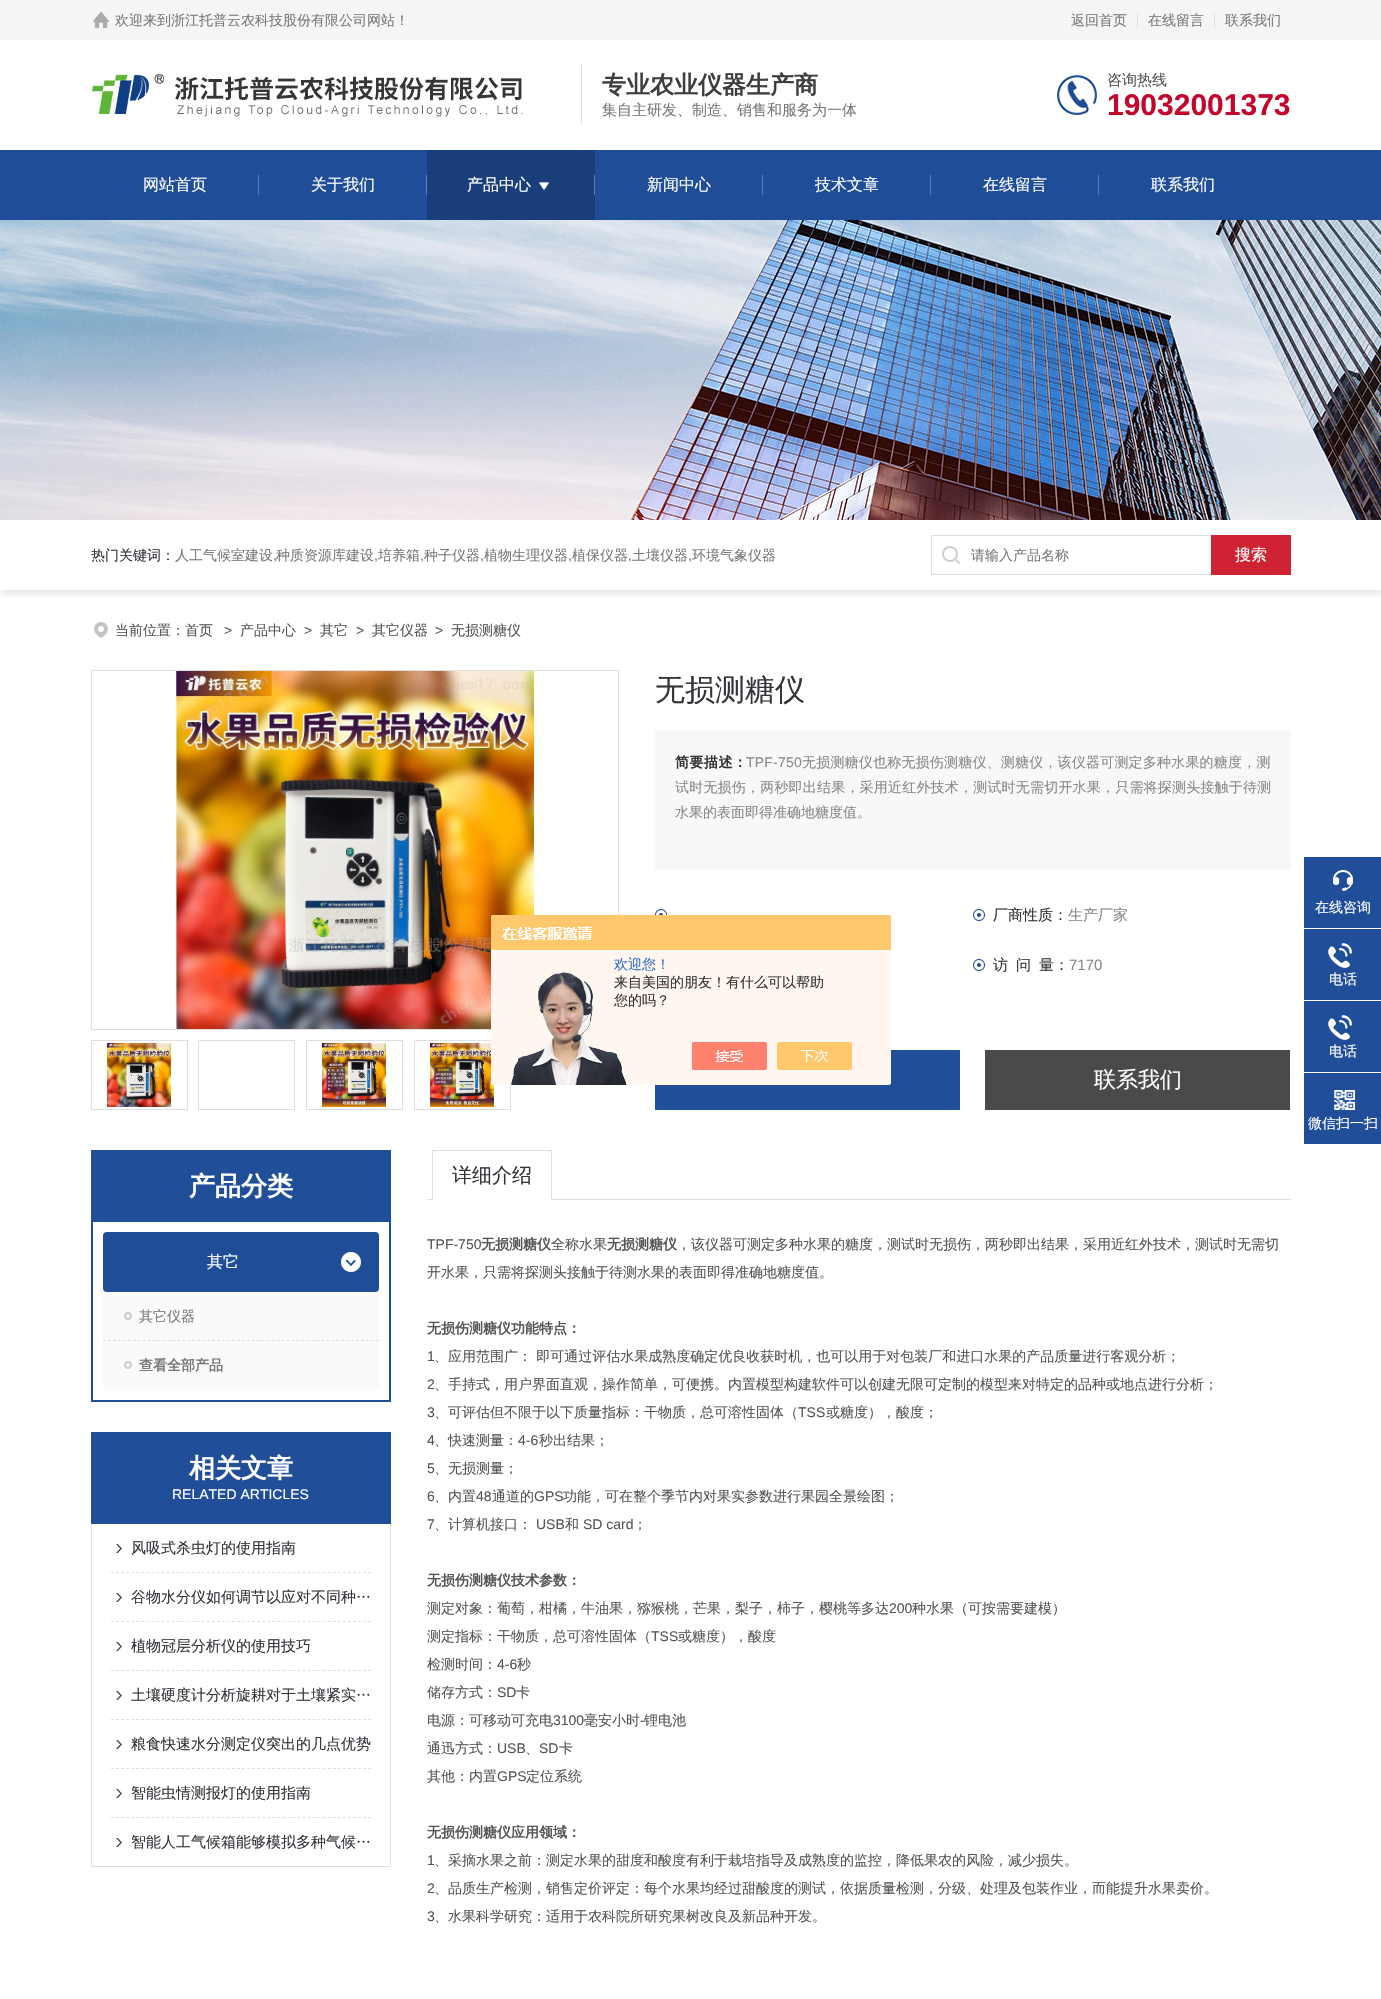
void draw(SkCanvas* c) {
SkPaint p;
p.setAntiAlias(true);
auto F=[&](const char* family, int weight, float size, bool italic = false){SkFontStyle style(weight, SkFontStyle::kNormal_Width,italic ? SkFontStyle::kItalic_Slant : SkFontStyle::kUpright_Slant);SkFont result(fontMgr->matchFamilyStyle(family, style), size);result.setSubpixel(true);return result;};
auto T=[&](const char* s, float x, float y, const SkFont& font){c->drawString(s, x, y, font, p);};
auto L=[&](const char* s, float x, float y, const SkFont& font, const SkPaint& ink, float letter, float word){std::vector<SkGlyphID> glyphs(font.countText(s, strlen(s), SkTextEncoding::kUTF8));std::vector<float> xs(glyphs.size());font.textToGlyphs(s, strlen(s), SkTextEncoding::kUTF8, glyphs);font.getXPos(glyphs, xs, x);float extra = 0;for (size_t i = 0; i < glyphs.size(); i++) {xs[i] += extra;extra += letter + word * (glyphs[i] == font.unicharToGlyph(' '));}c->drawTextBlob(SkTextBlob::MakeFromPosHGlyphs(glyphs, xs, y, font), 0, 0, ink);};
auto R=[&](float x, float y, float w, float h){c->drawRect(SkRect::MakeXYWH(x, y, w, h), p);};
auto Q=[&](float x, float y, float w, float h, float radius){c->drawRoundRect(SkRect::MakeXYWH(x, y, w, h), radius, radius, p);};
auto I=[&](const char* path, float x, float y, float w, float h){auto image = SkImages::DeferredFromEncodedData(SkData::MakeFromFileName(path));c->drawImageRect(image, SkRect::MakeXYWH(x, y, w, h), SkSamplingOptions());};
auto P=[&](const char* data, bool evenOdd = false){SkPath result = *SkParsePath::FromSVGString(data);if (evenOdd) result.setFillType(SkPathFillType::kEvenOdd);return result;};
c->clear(0xffffffff);
p.setColor(0xfff5f5f5);
R(0,0,1381,40);
I("1.png",93,12,16,16);
auto f1 = F("WenQuanYi Zen Hei",500,14);
p.setColor(0xff797979);
T("欢迎来到浙江托普云农科技股份有限公司网站！",115,25,f1);
T("返回首页",1071,25,f1);
p.setColor(0xffdfdfdf);
R(1137,13,1,15);
p.setColor(0xff797979);
T("在线留言",1148,25,f1);
p.setColor(0xffdfdfdf);
R(1214,13,1,15);
p.setColor(0xff797979);
T("联系我们",1225,25,f1);
I("2.png",92,72,431,45);
p.setColor(0xffdfdfdf);
R(581,65,1,60);
auto f2 = F("WenQuanYi Zen Hei",700,24);
p.setColor(0xff3e3e3e);
T("专业农业仪器生产商",602,93,f2);
auto f3 = F("WenQuanYi Zen Hei",500,15);
p.setColor(0xff797979);
T("集自主研发、制造、销售和服务为一体",602,115,f3);
I("3.png",1057,75,40,40);
p.setColor(0xff555555);
T("咨询热线",1107,85,f3);
auto f4 = F("Liberation Sans",700,30);
p.setColor(0xffc3062c);
T("19032001373",1107,115,f4);
p.setColor(0xff1f4d98);
R(0,150,1381,70);
p.setColor(0xff597fc0);
R(258,175,1,20);
auto f5 = F("WenQuanYi Zen Hei",500,16);
p.setColor(0xffffffff);
T("网站首页",143,190,f5);
p.setColor(0xff597fc0);
R(426,175,1,20);
p.setColor(0xffffffff);
T("关于我们",311,190,f5);
p.setColor(0xff193e7a);
R(427,150,168,70);
p.setColor(0xff597fc0);
R(594,175,1,20);
p.setColor(0xffffffff);
T("产品中心",467,190,f5);
I("4.png",539,181,10,10);
p.setColor(0xff597fc0);
R(762,175,1,20);
p.setColor(0xffffffff);
T("新闻中心",647,190,f5);
p.setColor(0xff597fc0);
R(930,175,1,20);
p.setColor(0xffffffff);
T("技术文章",815,190,f5);
p.setColor(0xff597fc0);
R(1098,175,1,20);
p.setColor(0xffffffff);
T("在线留言",983,190,f5);
T("联系我们",1151,190,f5);
I("5.png",0,220,1381,300);
c->save();
c->clipRect(SkRect::MakeXYWH(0,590,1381,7));
p.setColor(0x1a000000);
p.setMaskFilter(SkMaskFilter::MakeBlur(kNormal_SkBlurStyle, 4));
c->drawRect(SkRect::MakeXYWH(0,524,1381,70),p);
p.setMaskFilter(nullptr);
c->restore();
p.setColor(0xff32353a);
T("热门关键词：",91,560,f1);
p.setColor(0xff797979);
T("人工气候室建设",175,560,f1);
auto f6 = F("Liberation Sans",400,14);
T(",",273,560,f6);
T("种质资源库建设",276,560,f1);
T(",",374,560,f6);
T("培养箱",378,560,f1);
T(",",420,560,f6);
T("种子仪器",424,560,f1);
T(",",480,560,f6);
T("植物生理仪器",484,560,f1);
T(",",568,560,f6);
T("植保仪器",572,560,f1);
T(",",628,560,f6);
T("土壤仪器",632,560,f1);
T(",",688,560,f6);
T("环境气象仪器",692,560,f1);
I("6.png",942,546,18,18);
p.setColor(0xffdfdfdf);
R(931,535,280,1);
R(931,574,280,1);
R(931,535,1,40);
p.setColor(0xff797979);
T("请输入产品名称",971,560,f1);
p.setColor(0xffcf2333);
R(1211,535,80,40);
p.setColor(0xffffffff);
T("搜索",1235,560,f5);
I("7.png",94,622,14,16);
p.setColor(0xff555555);
T("当前位置：首页",115,635,f1);
T(">",224,635,f6);
T("产品中心",240,635,f1);
T(">",304,635,f6);
T("其它",320,635,f1);
T(">",356,635,f6);
T("其它仪器",372,635,f1);
T(">",435,635,f6);
T("无损测糖仪",451,635,f1);
p.setStroke(true);
p.setStrokeWidth(1);
p.setColor(0xffdfdfdf);
c->drawRect(SkRect::MakeXYWH(91.5,670.5,527,359),p);
I("8.png",176,671,358,358);
c->drawRect(SkRect::MakeXYWH(91.5,1040.5,96,69),p);
I("9.png",107,1043,64,64);
c->drawRect(SkRect::MakeXYWH(198.5,1040.5,96,69),p);
c->drawRect(SkRect::MakeXYWH(306.5,1040.5,96,69),p);
I("10.png",322,1043,64,64);
c->drawRect(SkRect::MakeXYWH(414.5,1040.5,96,69),p);
I("11.png",430,1043,64,64);
auto f7 = F("WenQuanYi Zen Hei",500,30);
p.setStroke(false);
p.setColor(0xff32353a);
T("无损测糖仪",655,700,f7);
p.setColor(0xfff8f8f8);
R(655,730,636,140);
auto f8 = F("WenQuanYi Zen Hei",700,14);
p.setColor(0xff333333);
L("简要描述：",675,767,f8,p,.5,0);
p.setColor(0xff888888);
L("TPF-750",746,767,f6,p,.2,0);
L("无损测糖仪也称无损伤测糖仪、测糖仪，该仪器可测定多种水果的糖度，测",802,767,f1,p,.2,0);
L("试时无损伤，两秒即出结果，采用近红外技术，测试时无需切开水果，只需将探测头接触于待测",675,792,f1,p,.2,0);
T("水果的表面即得准确地糖度值。",675,817,f1);
I("12.png",655,909,12,6);
I("13.png",973,909,12,12);
p.setColor(0xff333333);
T("厂商性质：",993,920,f3);
p.setColor(0xff888888);
T("生产厂家",1068,920,f3);
I("13.png",973,959,12,12);
p.setColor(0xff333333);
T("访",993,970,f3);
T("问",1016,970,f3);
T("量：",1039,970,f3);
auto f9 = F("Liberation Sans",400,15);
p.setColor(0xff888888);
T("7170",1069,970,f9);
p.setColor(0xff204e99);
R(655,1050,305,60);
p.setColor(0xff4a4a4a);
R(985,1050,305,60);
auto f10 = F("WenQuanYi Zen Hei",500,22);
p.setColor(0xffffffff);
T("联系我们",1094,1087,f10);
p.setColor(0xff204e99);
R(91,1150,300,72);
auto f11 = F("WenQuanYi Zen Hei",700,26);
p.setColor(0xffffffff);
T("产品分类",189,1195,f11);
p.setColor(0xff204e99);
R(389,1222,2,180);
R(91,1400,300,2);
R(91,1222,2,180);
p.setColor(0xff1f4d98);
Q(103,1232,276,60,4);
p.setColor(0xffffffff);
T("其它",207,1267,f5);
I("14.png",341,1252,20,20);
p.setColor(0xfffafafa);
R(103,1292,276,97);
I("15.png",124,1312,8,8);
p.setColor(0xff797979);
T("其它仪器",139,1321,f1);
I("15.png",124,1361,8,8);
p.setStroke(true);
p.setColor(0xffdfdfdf);
p.setPathEffect(SkDashPathEffect::Make({{3,1.96f}}, 0));
c->drawPath(P("M103 1340.5h276"),p);
p.setPathEffect(nullptr);
p.setStroke(false);
p.setColor(0xff797979);
T("查看全部产品",139,1370,f8);
p.setColor(0xff204e99);
R(91,1432,300,92);
p.setColor(0xffffffff);
T("相关文章",189,1477,f11);
T("RELATED ARTICLES",172,1499,f6);
p.setColor(0xffdfdfdf);
R(390,1524,1,343);
R(91,1866,300,1);
R(91,1524,1,343);
p.setStroke(true);
p.setPathEffect(SkDashPathEffect::Make({{3,2.04f}}, 0));
c->drawPath(P("M111 1572.5h260"),p);
p.setPathEffect(nullptr);
I("16.png",116,1544,6,9);
p.setStroke(false);
p.setColor(0xff32353a);
T("风吸式杀虫灯的使用指南",131,1553,f3);
p.setStroke(true);
p.setColor(0xffdfdfdf);
p.setPathEffect(SkDashPathEffect::Make({{3,2.04f}}, 0));
c->drawPath(P("M111 1621.5h260"),p);
p.setPathEffect(nullptr);
I("16.png",116,1593,6,9);
p.setStroke(false);
p.setColor(0xff32353a);
T("谷物水分仪如何调节以应对不同种…",131,1602,f3);
p.setStroke(true);
p.setColor(0xffdfdfdf);
p.setPathEffect(SkDashPathEffect::Make({{3,2.04f}}, 0));
c->drawPath(P("M111 1670.5h260"),p);
p.setPathEffect(nullptr);
I("16.png",116,1642,6,9);
p.setStroke(false);
p.setColor(0xff32353a);
T("植物冠层分析仪的使用技巧",131,1651,f3);
p.setStroke(true);
p.setColor(0xffdfdfdf);
p.setPathEffect(SkDashPathEffect::Make({{3,2.04f}}, 0));
c->drawPath(P("M111 1719.5h260"),p);
p.setPathEffect(nullptr);
I("16.png",116,1691,6,9);
p.setStroke(false);
p.setColor(0xff32353a);
T("土壤硬度计分析旋耕对于土壤紧实…",131,1700,f3);
p.setStroke(true);
p.setColor(0xffdfdfdf);
p.setPathEffect(SkDashPathEffect::Make({{3,2.04f}}, 0));
c->drawPath(P("M111 1768.5h260"),p);
p.setPathEffect(nullptr);
I("16.png",116,1740,6,9);
p.setStroke(false);
p.setColor(0xff32353a);
T("粮食快速水分测定仪突出的几点优势",131,1749,f3);
p.setStroke(true);
p.setColor(0xffdfdfdf);
p.setPathEffect(SkDashPathEffect::Make({{3,2.04f}}, 0));
c->drawPath(P("M111 1817.5h260"),p);
p.setPathEffect(nullptr);
I("16.png",116,1789,6,9);
p.setStroke(false);
p.setColor(0xff32353a);
T("智能虫情测报灯的使用指南",131,1798,f3);
I("16.png",116,1838,6,9);
T("智能人工气候箱能够模拟多种气候…",131,1847,f3);
p.setColor(0xffdfdfdf);
R(427,1199,864,1);
R(432,1150,120,1);
R(551,1150,1,50);
p.setColor(0xffffffff);
R(432,1199,120,1);
p.setColor(0xffdfdfdf);
R(432,1150,1,50);
auto f12 = F("WenQuanYi Zen Hei",500,20);
p.setColor(0xff32353a);
T("详细介绍",452,1182,f12);
p.setColor(0xff555555);
T("TPF-750",427,1249,f6);
T("无损测糖仪",481,1249,f8);
T("全称水果",551,1249,f1);
T("无损测糖仪",607,1249,f8);
T("，该仪器可测定多种水果的糖度，测试时无损伤，两秒即出结果，采用近红外技术，测试时无需切",677,1249,f1);
T("开水果，只需将探测头接触于待测水果的表面即得准确地糖度值。",427,1277,f1);
T("无损伤测糖仪功能特点：",427,1333,f8);
T("1",427,1361,f6);
T("、应用范围广： 即可通过评估水果成熟度确定优良收获时机，也可以用于对包装厂和进口水果的产品质量进行客观分析；",434,1361,f1);
T("2",427,1389,f6);
T("、手持式，用户界面直观，操作简单，可便携。内置模型构建软件可以创建无限可定制的模型来对特定的品种或地点进行分析；",434,1389,f1);
T("3",427,1417,f6);
T("、可评估但不限于以下质量指标：干物质，总可溶性固体（",434,1417,f1);
T("TSS",798,1417,f6);
T("或糖度），酸度；",826,1417,f1);
T("4",427,1445,f6);
T("、快速测量：",434,1445,f1);
T("4-6",518,1445,f6);
T("秒出结果；",539,1445,f1);
T("5",427,1473,f6);
T("、无损测量；",434,1473,f1);
T("6",427,1501,f6);
T("、内置",434,1501,f1);
T("48",476,1501,f6);
T("通道的",492,1501,f1);
T("GPS",534,1501,f6);
T("功能，可在整个季节内对果实参数进行果园全景绘图；",563,1501,f1);
T("7",427,1529,f6);
T("、计算机接口：",434,1529,f1);
T("USB",536,1529,f6);
T("和",565,1529,f1);
T("SD card",583,1529,f6);
T("；",633,1529,f1);
T("无损伤测糖仪技术参数：",427,1585,f8);
T("测定对象：葡萄，柑橘，牛油果，猕猴桃，芒果，梨子，柿子，樱桃等多达",427,1613,f1);
T("200",889,1613,f6);
T("种水果（可按需要建模）",912,1613,f1);
T("测定指标：干物质，总可溶性固体（",427,1641,f1);
T("TSS",651,1641,f6);
T("或糖度），酸度",678,1641,f1);
T("检测时间：",427,1669,f1);
T("4-6",497,1669,f6);
T("秒",517,1669,f1);
T("储存方式：",427,1697,f1);
T("SD",497,1697,f6);
T("卡",516,1697,f1);
T("电源：可移动可充电",427,1725,f1);
T("3100",553,1725,f6);
T("毫安小时",584,1725,f1);
T("-",640,1725,f6);
T("锂电池",644,1725,f1);
T("通迅方式：",427,1753,f1);
T("USB",497,1753,f6);
T("、",525,1753,f1);
T("SD",539,1753,f6);
T("卡",559,1753,f1);
T("其他：内置",427,1781,f1);
T("GPS",497,1781,f6);
T("定位系统",526,1781,f1);
T("无损伤测糖仪应用领域：",427,1837,f8);
T("1",427,1865,f6);
T("、采摘水果之前：测定水果的甜度和酸度有利于栽培指导及成熟度的监控，降低果农的风险，减少损失。",434,1865,f1);
T("2",427,1893,f6);
T("、品质生产检测，销售定价评定：每个水果均经过甜酸度的测试，依据质量检测，分级、处理及包装作业，而能提升水果卖价。",434,1893,f1);
T("3",427,1921,f6);
T("、水果科学研究：适用于农科院所研究果树改良及新品种开发。",434,1921,f1);
p.setColor(0xff204e99);
R(1304,857,77,71);
I("17.png",1333,870,20,21);
p.setColor(0xffffffff);
T("在线咨询",1315,912,f1);
p.setColor(0xff204e99);
R(1304,929,77,71);
I("18.png",1328,943,24,25);
p.setColor(0xffffffff);
T("电话",1329,984,f1);
p.setColor(0xff204e99);
R(1304,1001,77,71);
I("18.png",1328,1015,24,25);
p.setColor(0xffffffff);
T("电话",1329,1056,f1);
p.setColor(0xff204e99);
R(1304,1073,77,71);
I("19.png",1334,1090,21,20);
p.setColor(0xffffffff);
T("微信扫一扫",1308,1128,f1);
I("20.png",491,915,400,170);
p.setColor(0xff2e6ec6);
T("欢迎您！",614,969,f1);
p.setColor(0xff333333);
T("来自美国的朋友！有什么可以帮助",614,987,f1);
T("您的吗？",614,1005,f1);
}
